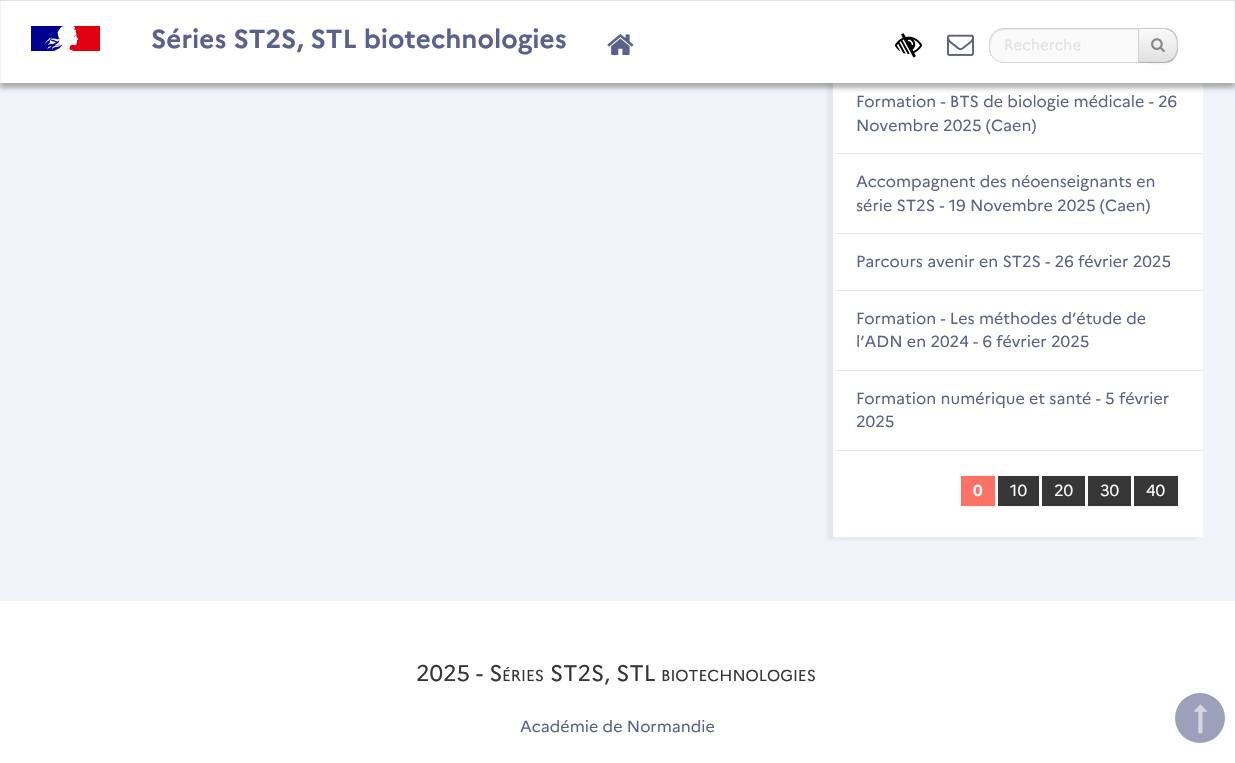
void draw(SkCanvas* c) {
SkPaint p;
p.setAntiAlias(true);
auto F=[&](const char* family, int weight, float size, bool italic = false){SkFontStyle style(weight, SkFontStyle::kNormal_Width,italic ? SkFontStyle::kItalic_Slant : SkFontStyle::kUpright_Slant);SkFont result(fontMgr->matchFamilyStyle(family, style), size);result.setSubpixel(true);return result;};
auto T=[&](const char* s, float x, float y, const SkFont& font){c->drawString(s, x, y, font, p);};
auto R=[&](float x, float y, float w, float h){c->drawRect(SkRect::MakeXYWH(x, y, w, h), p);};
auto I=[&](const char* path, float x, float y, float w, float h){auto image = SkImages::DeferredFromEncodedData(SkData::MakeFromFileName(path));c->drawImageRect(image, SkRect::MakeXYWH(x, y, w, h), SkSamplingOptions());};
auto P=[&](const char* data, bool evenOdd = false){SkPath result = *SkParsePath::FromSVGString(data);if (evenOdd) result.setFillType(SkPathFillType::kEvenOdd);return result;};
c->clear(0xfff2f4fc);
p.setColor(0x33b4b4b4);
p.setMaskFilter(SkMaskFilter::MakeBlur(kNormal_SkBlurStyle, 1.5));
c->drawRect(SkRect::MakeXYWH(827,-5,370,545),p);
p.setMaskFilter(nullptr);
p.setColor(0xffe0e2e4);
R(0,0,1235,1);
p.setColor(0xffffffff);
R(833,83,370,454);
p.setColor(0x4d000000);
p.setMaskFilter(SkMaskFilter::MakeBlur(kNormal_SkBlurStyle, 2.5));
c->drawRect(SkRect::MakeXYWH(0,6,1235,82),p);
p.setMaskFilter(nullptr);
p.setColor(0xffffffff);
R(1,1,1233,82);
p.setColor(0xfff2f2f2);
R(1234,1,1,82);
R(0,1,1,82);
I("1.png",31,26,69,25);
auto f1 = F("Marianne",700,26.1);
p.setColor(0xff5a618d);
T("Séries ST2S, STL biotechnologies",151,48,f1);
I("2.png",607,34,27,21);
I("3.png",895,33,27,25);
I("4.png",947,34,27,22);
p.setColor(0x0d000000);
p.setMaskFilter(SkMaskFilter::MakeBlur(kNormal_SkBlurStyle, 1));
c->drawRoundRect(SkRect::MakeXYWH(1138,29,40,35),14,14,p);
p.setMaskFilter(nullptr);
c->save();
c->clipPath(P("M1138 28h26c7.5 0 14 6.5 14 14v7c0 7.5-6.5 14-14 14h-26z"),true);
{
const SkColor colors[] = {0xfffafafa,0xffe1e1e1};
const float stops[] = {0,1};
const SkPoint ends[] = {{1158,29}, {1158,62}};
p.setShader(SkGradientShader::MakeLinear(ends, colors, stops, 2, SkTileMode::kClamp));
p.setAlpha(255);
}
R(1139,29,39,33);
c->restore();
p.setShader(nullptr);
p.setColor(0xffc7c7c7);
c->drawPath(P("M1138 28l1 1h16c6 0 13.5-1 18 4l1-1c-2.5-2.5-6-4-10-4z"),p);
c->drawPath(P("M1178 49c0-6 .5-12.5-4-17l-1 1c5.5 6.5 5.5 18.5 0 25l1 1c2.5-2.5 4-6 4-10z"),p);
p.setColor(0xffadadad);
c->drawPath(P("M1164 63c4 0 7.5-1.5 10-4l-1-1c-4.5 5-12 4-18 4h-16l-1 1z"),p);
p.setColor(0xfffafafa);
c->drawPath(P("M1004 28h135v35h-135c-8.5 0-15-6.5-15-15v-5c0-8.5 6.5-15 15-15z"),p);
p.setColor(0xffe7e7e7);
c->drawPath(P("M1004 30h134v-1h-134c-8 0-14 6-14 14v5c0 3 1 5 2 7c-5-10 0-25 12-25z"),p);
p.setStroke(true);
p.setStrokeWidth(1);
p.setColor(0xffd4d4d4);
c->drawPath(P("M1004 28.5h134.5v34h-134.5c-8 0-14.5-6.5-14.5-14.5v-5c0-8 6.5-14.5 14.5-14.5z"),p);
auto f2 = F("Marianne",400,15);
p.setStroke(false);
p.setColor(0xffe0e2e4);
T("Recherche",1004,50,f2);
I("5.png",1151,38,14,15);
auto f3 = F("Marianne",400,16);
p.setColor(0xff5a618d);
T("Formation - BTS de biologie médicale - 26",856,107,f3);
T("Novembre 2025 (Caen)",856,131,f3);
p.setColor(0xffe5e5e5);
c->drawPath(P("M833 153h370v1h-363z"),p);
p.setColor(0xff5a618d);
T("Accompagnent des néoenseignants en",856,187,f3);
T("série ST2S - 19 Novembre 2025 (Caen)",856,211,f3);
p.setColor(0xffe5e5e5);
c->drawPath(P("M833 233h370v1h-363z"),p);
p.setColor(0xff5a618d);
T("Parcours avenir en ST2S - 26 février 2025",856,267,f3);
p.setColor(0xffe5e5e5);
c->drawPath(P("M833 290h370v1h-363z"),p);
p.setColor(0xff5a618d);
T("Formation - Les méthodes d’étude de",856,324,f3);
T("l’ADN en 2024 - 6 février 2025",856,347,f3);
p.setColor(0xffe5e5e5);
c->drawPath(P("M833 370h370v1h-363z"),p);
c->drawPath(P("M1203 451h-370l7-1h363z"),p);
p.setColor(0xff5a618d);
T("Formation numérique et santé - 5 février",856,404,f3);
T("2025",856,427,f3);
p.setColor(0x0d000000);
p.setMaskFilter(SkMaskFilter::MakeBlur(kNormal_SkBlurStyle, 1));
c->drawRect(SkRect::MakeXYWH(960,475,219,32),p);
p.setMaskFilter(nullptr);
p.setColor(0xfffc7166);
R(961,476,34,30);
p.setColor(0xfffafafa);
R(960,475,219,1);
R(995,474,3,32);
R(960,474,1,32);
auto f4 = F("Marianne",700,16);
T("0",973,496,f4);
p.setColor(0xff363636);
R(998,476,41,30);
p.setColor(0xfffafafa);
R(1039,474,3,32);
T("10",1010,496,f3);
p.setColor(0xff363636);
R(1042,476,43,30);
p.setColor(0xfffafafa);
R(1085,474,3,32);
T("20",1054,496,f3);
p.setColor(0xff363636);
R(1088,476,43,30);
p.setColor(0xfffafafa);
R(1131,474,3,32);
T("30",1100,496,f3);
p.setColor(0xff363636);
R(1134,476,44,30);
p.setColor(0xfffafafa);
R(1178,474,1,32);
T("40",1146,496,f3);
p.setColor(0xffffffff);
R(0,601,1235,162);
auto f5 = F("Marianne",400,22.5);
p.setColor(0xff363636);
T("2025 - S",416,681,f5);
auto f6 = F("Marianne",400,15.75);
T("ÉRIES",502,681,f6);
T("ST2S, STL",550,681,f5);
T("BIOTECHNOLOGIES",661,681,f6);
p.setColor(0xff5a618d);
T("Académie de Normandie",520,732,f3);
p.setColor(0xff9ca0bb);
c->drawCircle(1200,718,25,p);
I("6.png",1194,704,13,30);
}
